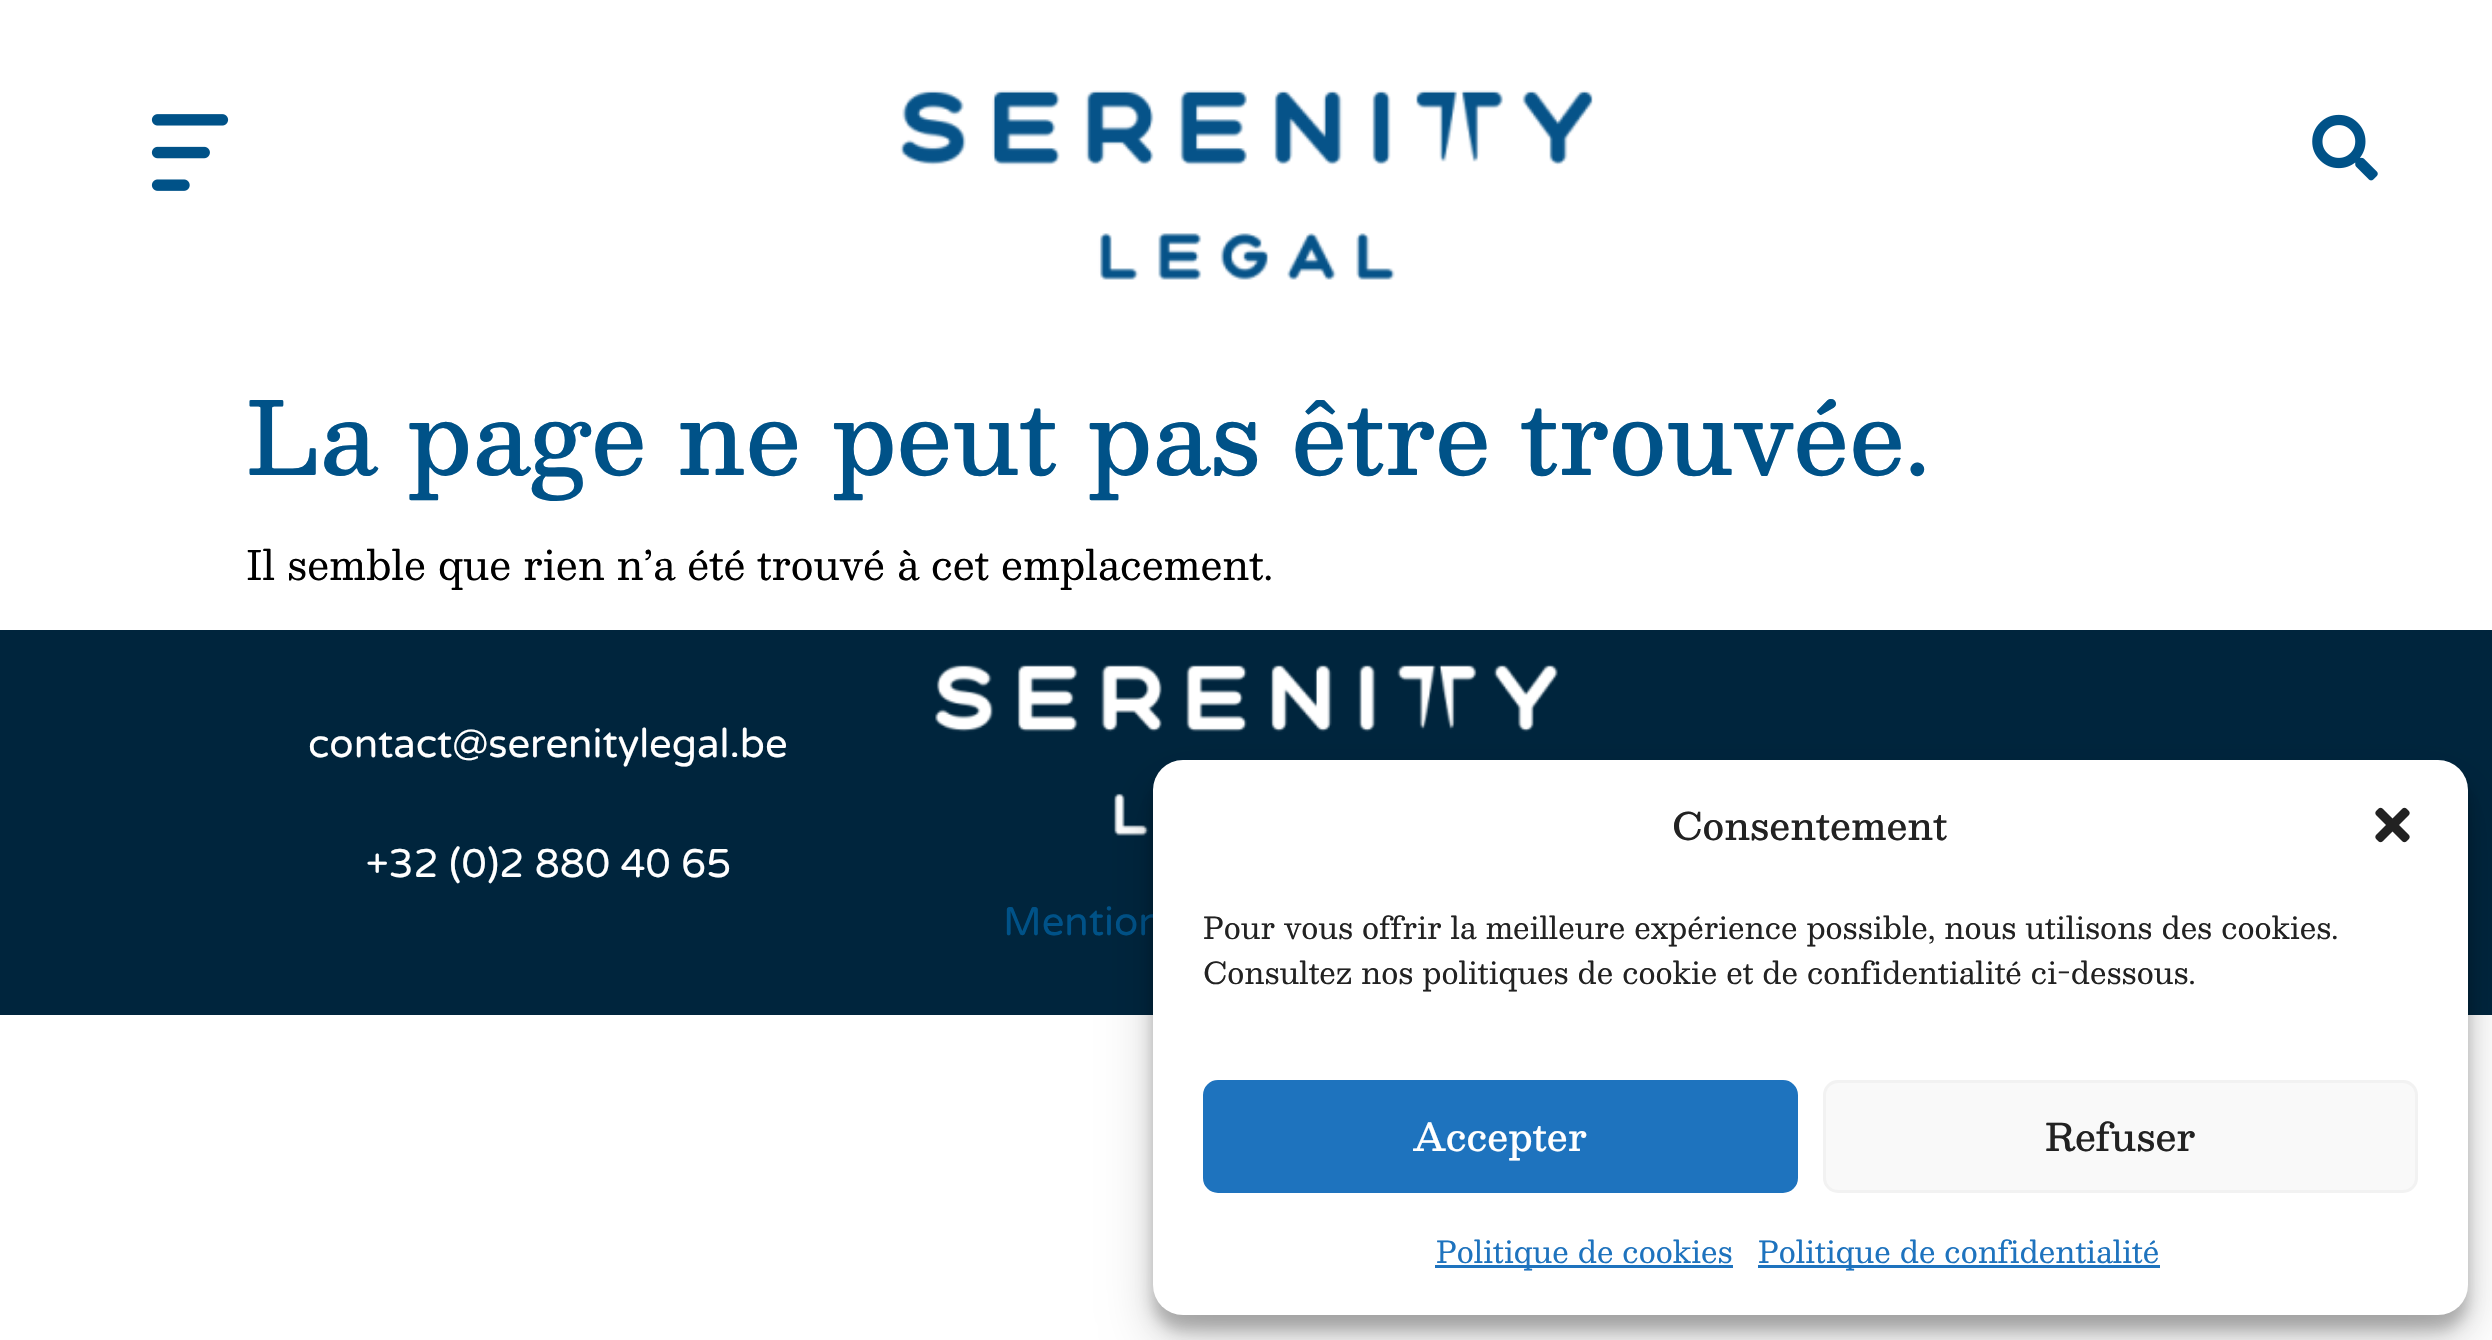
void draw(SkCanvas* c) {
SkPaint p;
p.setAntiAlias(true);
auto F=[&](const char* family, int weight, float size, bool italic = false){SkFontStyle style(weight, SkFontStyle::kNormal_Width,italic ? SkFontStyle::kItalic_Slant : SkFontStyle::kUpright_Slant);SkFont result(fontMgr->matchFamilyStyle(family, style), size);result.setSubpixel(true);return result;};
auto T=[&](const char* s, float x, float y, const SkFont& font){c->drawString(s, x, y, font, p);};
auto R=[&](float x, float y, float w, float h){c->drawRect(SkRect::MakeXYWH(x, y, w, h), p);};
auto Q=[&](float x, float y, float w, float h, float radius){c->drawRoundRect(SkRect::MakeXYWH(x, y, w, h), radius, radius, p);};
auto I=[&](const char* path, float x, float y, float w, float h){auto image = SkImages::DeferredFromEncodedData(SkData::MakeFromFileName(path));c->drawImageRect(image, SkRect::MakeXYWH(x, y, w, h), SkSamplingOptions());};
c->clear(0xffffffff);
I("1.png",151,114,78,77);
I("2.png",900,90,693,190);
I("3.png",2312,114,66,67);
auto f1 = F("Besley",500,100);
p.setColor(0xff005288);
T("La page ne peut pas être trouvée.",246,475,f1);
auto f2 = F("Besley",400,40);
p.setColor(0xff000000);
T("Il semble que rien n’a été trouvé à cet emplacement.",246,580,f2);
p.setColor(0xff00253d);
R(0,630,2492,385);
auto f3 = F("Varela Round",400,40);
p.setColor(0xffffffff);
T("contact@serenitylegal.be",308,757,f3);
T("+32 (0)2 880 40 65",366,877,f3);
I("4.png",935,664,623,172);
p.setColor(0xff005288);
T("Mention",1003,935,f3);
p.setColor(0x3b000000);
p.setMaskFilter(SkMaskFilter::MakeBlur(kNormal_SkBlurStyle, 7.5));
c->drawRoundRect(SkRect::MakeXYWH(1153,775,1315,555),30,30,p);
p.setMaskFilter(nullptr);
p.setColor(0x30000000);
p.setMaskFilter(SkMaskFilter::MakeBlur(kNormal_SkBlurStyle, 25));
c->drawRoundRect(SkRect::MakeXYWH(1153,785,1315,555),30,30,p);
p.setMaskFilter(nullptr);
p.setColor(0xffffffff);
Q(1153,760,1315,555,30);
auto f4 = F("Besley",500,37.5);
p.setColor(0xff222222);
T("Consentement",1672,840,f4);
I("5.png",2375,807,35,36);
auto f5 = F("Besley",400,30);
T("Pour vous offrir la meilleure expérience possible, nous utilisons des cookies.",1203,939,f5);
T("Consultez nos politiques de cookie et de confidentialité ci-dessous.",1203,984,f5);
p.setColor(0xff1e73be);
c->drawRoundRect(SkRect::MakeXYWH(1204.5,1081.5,592,110),13.5,13.5,p);
p.setStroke(true);
p.setStrokeWidth(3);
c->drawRoundRect(SkRect::MakeXYWH(1204.5,1081.5,592,110),13.5,13.5,p);
p.setStroke(false);
p.setColor(0xffffffff);
T("Accepter",1413,1151,f4);
p.setColor(0xfff9f9f9);
c->drawRoundRect(SkRect::MakeXYWH(1824.5,1081.5,592,110),13.5,13.5,p);
p.setStroke(true);
p.setColor(0xfff2f2f2);
c->drawRoundRect(SkRect::MakeXYWH(1824.5,1081.5,592,110),13.5,13.5,p);
p.setStroke(false);
p.setColor(0xff222222);
T("Refuser",2045,1151,f4);
p.setColor(0xff1e73be);
R(1435,1265,298,3);
T("Politique de cookies",1436,1263,f5);
R(1758,1265,402,3);
T("Politique de confidentialité",1758,1263,f5);
}
